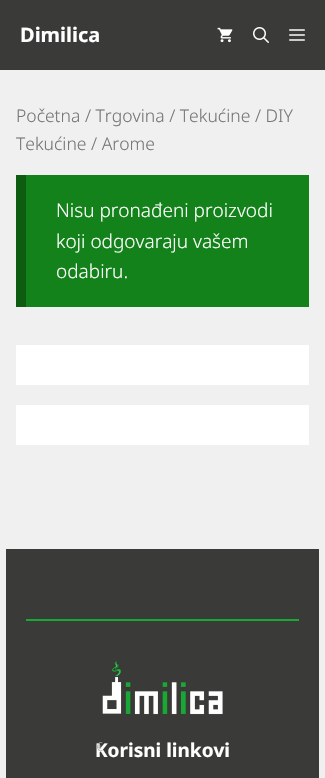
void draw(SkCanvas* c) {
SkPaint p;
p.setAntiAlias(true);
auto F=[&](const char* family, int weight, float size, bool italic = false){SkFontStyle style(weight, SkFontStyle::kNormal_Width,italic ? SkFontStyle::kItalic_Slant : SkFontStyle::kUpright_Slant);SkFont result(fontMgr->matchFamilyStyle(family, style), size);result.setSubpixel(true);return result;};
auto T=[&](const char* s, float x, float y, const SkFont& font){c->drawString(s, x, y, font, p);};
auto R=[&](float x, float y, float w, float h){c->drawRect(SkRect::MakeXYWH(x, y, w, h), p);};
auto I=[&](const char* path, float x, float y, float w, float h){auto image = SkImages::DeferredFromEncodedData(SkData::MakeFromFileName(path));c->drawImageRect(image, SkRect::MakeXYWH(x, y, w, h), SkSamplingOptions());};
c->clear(0xfff0f0f0);
p.setColor(0xff3a3a38);
R(0,0,325,70);
auto f1 = F("Noto Sans",700,20);
p.setColor(0xffffffff);
T("Dimilica",20,42,f1);
I("1.png",217,27,16,16);
I("2.png",253,27,16,16);
I("3.png",289,29,16,12);
auto f2 = F("Noto Sans",300,17.5);
p.setColor(0xff767676);
T("Početna / Trgovina / Tekućine / DIY",16,122,f2);
T("Tekućine / Arome",16,150,f2);
p.setColor(0xff14821a);
R(26,175,283,132);
p.setColor(0xff0e5b12);
R(16,175,10,132);
auto f3 = F("Noto Sans",300,19);
p.setColor(0xffffffff);
T("Nisu pronađeni proizvodi",56,217,f3);
T("koji odgovaraju vašem",56,248,f3);
T("odabiru.",56,278,f3);
R(16,345,293,40);
R(16,405,293,40);
p.setColor(0xff3a3a38);
R(6,549,313,229);
p.setColor(0xff19a836);
R(26,619,273,2);
I("4.png",102,661,121,54);
auto f4 = F("Noto Sans",700,19);
p.setColor(0xffffffff);
T("Korisni linkovi",95,757,f4);
auto f5 = F("Noto Sans",300,12);
p.setColor(0xffababaa);
T("€",96,751,f5);
}
